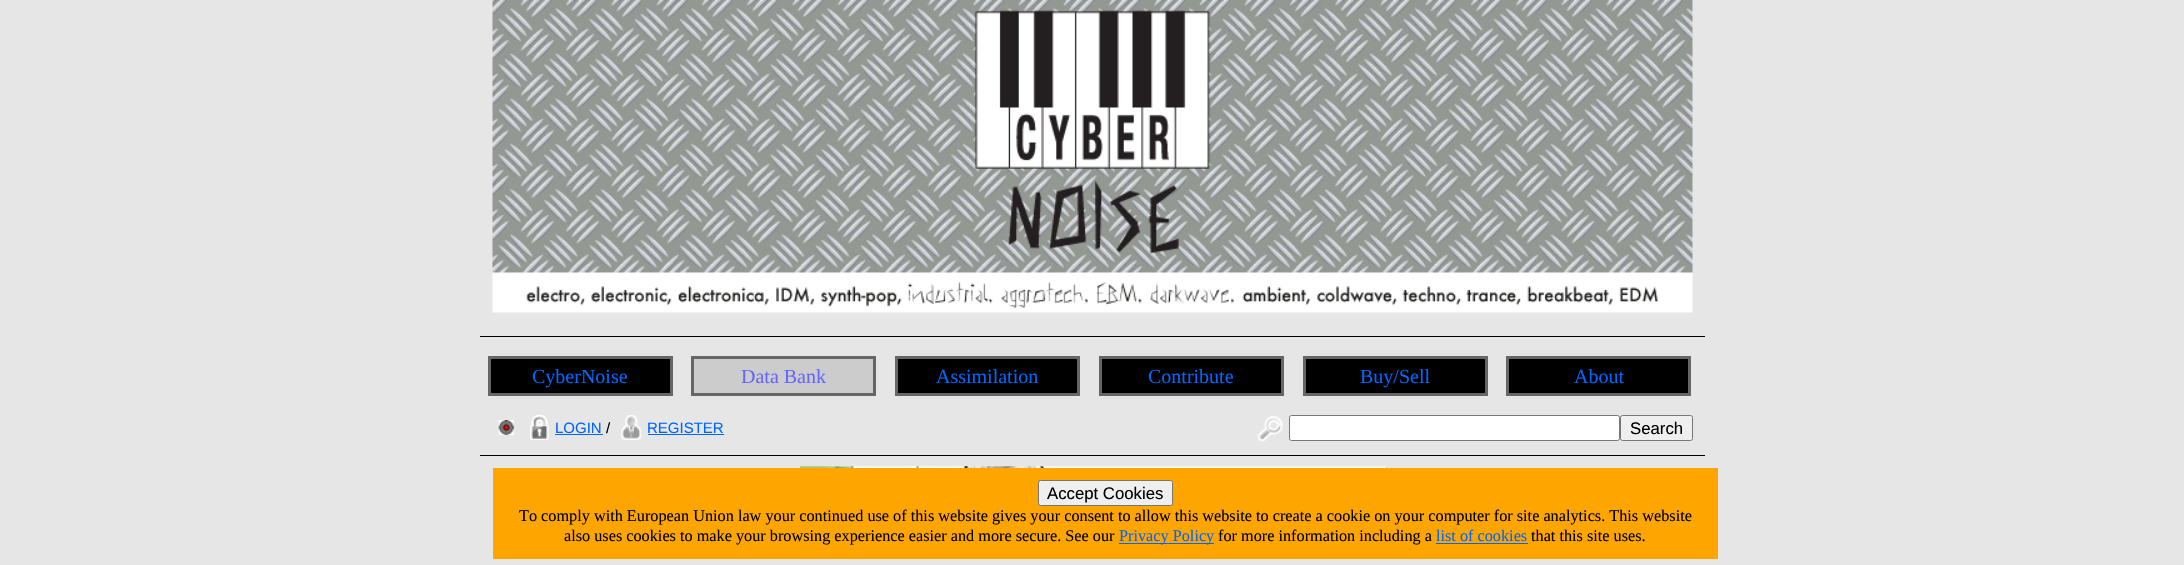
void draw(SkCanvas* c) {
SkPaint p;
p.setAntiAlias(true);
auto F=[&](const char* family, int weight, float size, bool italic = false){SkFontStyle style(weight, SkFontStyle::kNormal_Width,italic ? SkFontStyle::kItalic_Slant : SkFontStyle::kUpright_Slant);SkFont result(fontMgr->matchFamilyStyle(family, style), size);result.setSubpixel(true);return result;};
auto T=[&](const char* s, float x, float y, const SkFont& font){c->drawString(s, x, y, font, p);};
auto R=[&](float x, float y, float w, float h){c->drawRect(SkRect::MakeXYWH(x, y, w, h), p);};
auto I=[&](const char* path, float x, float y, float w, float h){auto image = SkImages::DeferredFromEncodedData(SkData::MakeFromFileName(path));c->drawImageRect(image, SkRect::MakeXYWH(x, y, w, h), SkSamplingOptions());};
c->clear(0xffe6e6e6);
I("1.png",492,0,1201,313);
p.setColor(0xff000000);
R(480,336,1225,1);
c->drawRect(SkRect::MakeXYWH(489.5,357.5,182,37),p);
p.setStroke(true);
p.setStrokeWidth(3);
p.setColor(0xff666666);
c->drawRect(SkRect::MakeXYWH(489.5,357.5,182,37),p);
auto f1 = F("Liberation Serif",400,20);
p.setStroke(false);
p.setColor(0xff0066ff);
T("CyberNoise",532,383,f1);
p.setColor(0xffcccccc);
c->drawRect(SkRect::MakeXYWH(692.5,357.5,182,37),p);
p.setStroke(true);
p.setColor(0xff666666);
c->drawRect(SkRect::MakeXYWH(692.5,357.5,182,37),p);
p.setStroke(false);
p.setColor(0xff6666ff);
T("Data Bank",741,383,f1);
p.setColor(0xff000000);
c->drawRect(SkRect::MakeXYWH(896.5,357.5,182,37),p);
p.setStroke(true);
p.setColor(0xff666666);
c->drawRect(SkRect::MakeXYWH(896.5,357.5,182,37),p);
p.setStroke(false);
p.setColor(0xff0066ff);
T("Assimilation",936,383,f1);
p.setColor(0xff000000);
c->drawRect(SkRect::MakeXYWH(1100.5,357.5,182,37),p);
p.setStroke(true);
p.setColor(0xff666666);
c->drawRect(SkRect::MakeXYWH(1100.5,357.5,182,37),p);
p.setStroke(false);
p.setColor(0xff0066ff);
T("Contribute",1148,383,f1);
p.setColor(0xff000000);
c->drawRect(SkRect::MakeXYWH(1304.5,357.5,182,37),p);
p.setStroke(true);
p.setColor(0xff666666);
c->drawRect(SkRect::MakeXYWH(1304.5,357.5,182,37),p);
p.setStroke(false);
p.setColor(0xff0066ff);
T("Buy/Sell",1360,383,f1);
p.setColor(0xff000000);
c->drawRect(SkRect::MakeXYWH(1507.5,357.5,182,37),p);
p.setStroke(true);
p.setColor(0xff666666);
c->drawRect(SkRect::MakeXYWH(1507.5,357.5,182,37),p);
p.setStroke(false);
p.setColor(0xff0066ff);
T("About",1574,383,f1);
I("2.png",498,420,16,15);
I("3.png",530,415,19,25);
auto f2 = F("Liberation Sans",400,15);
T("LOGIN",555,433,f2);
R(555,434,48,1);
p.setColor(0xff000000);
T("/",606,433,f2);
I("4.png",621,415,21,25);
p.setColor(0xff0066ff);
T("REGISTER",647,433,f2);
R(648,434,76,1);
I("5.png",1257,416,26,26);
p.setColor(0xffffffff);
c->drawRoundRect(SkRect::MakeXYWH(1289.5,415.5,330,25),2,2,p);
p.setStroke(true);
p.setStrokeWidth(1);
p.setColor(0xff767676);
c->drawRoundRect(SkRect::MakeXYWH(1289.5,415.5,330,25),2,2,p);
p.setStroke(false);
p.setColor(0xffefefef);
c->drawRoundRect(SkRect::MakeXYWH(1620.5,415.5,72,25),2,2,p);
p.setStroke(true);
p.setColor(0xff767676);
c->drawRoundRect(SkRect::MakeXYWH(1620.5,415.5,72,25),2,2,p);
auto f3 = F("Liberation Sans",400,16.75);
p.setStroke(false);
p.setColor(0xff000000);
T("Search",1630,434,f3);
R(480,455,1225,1);
I("6.png",800,466,585,2);
p.setColor(0xffffa500);
R(493,468,1225,91);
p.setColor(0xffefefef);
c->drawRoundRect(SkRect::MakeXYWH(1038.5,480.5,134,25),2,2,p);
p.setStroke(true);
p.setColor(0xff767676);
c->drawRoundRect(SkRect::MakeXYWH(1038.5,480.5,134,25),2,2,p);
p.setStroke(false);
p.setColor(0xff000000);
T("Accept Cookies",1047,499,f3);
auto f4 = F("Liberation Serif",400,16.25);
T("To comply with European Union law your continued use of this website gives your consent to allow this website to create a cookie on your computer for site analytics. This website",519,521,f4);
T("also uses cookies to make your browsing experience easier and more secure. See our",564,541,f4);
p.setColor(0xff0066ff);
R(1119,543,95,1);
T("Privacy Policy",1119,541,f4);
p.setColor(0xff000000);
T("for more information including a",1218,541,f4);
p.setColor(0xff0066ff);
T("list of cookies",1436,541,f4);
R(1436,543,92,1);
p.setColor(0xff000000);
T("that this site uses.",1531,541,f4);
}
